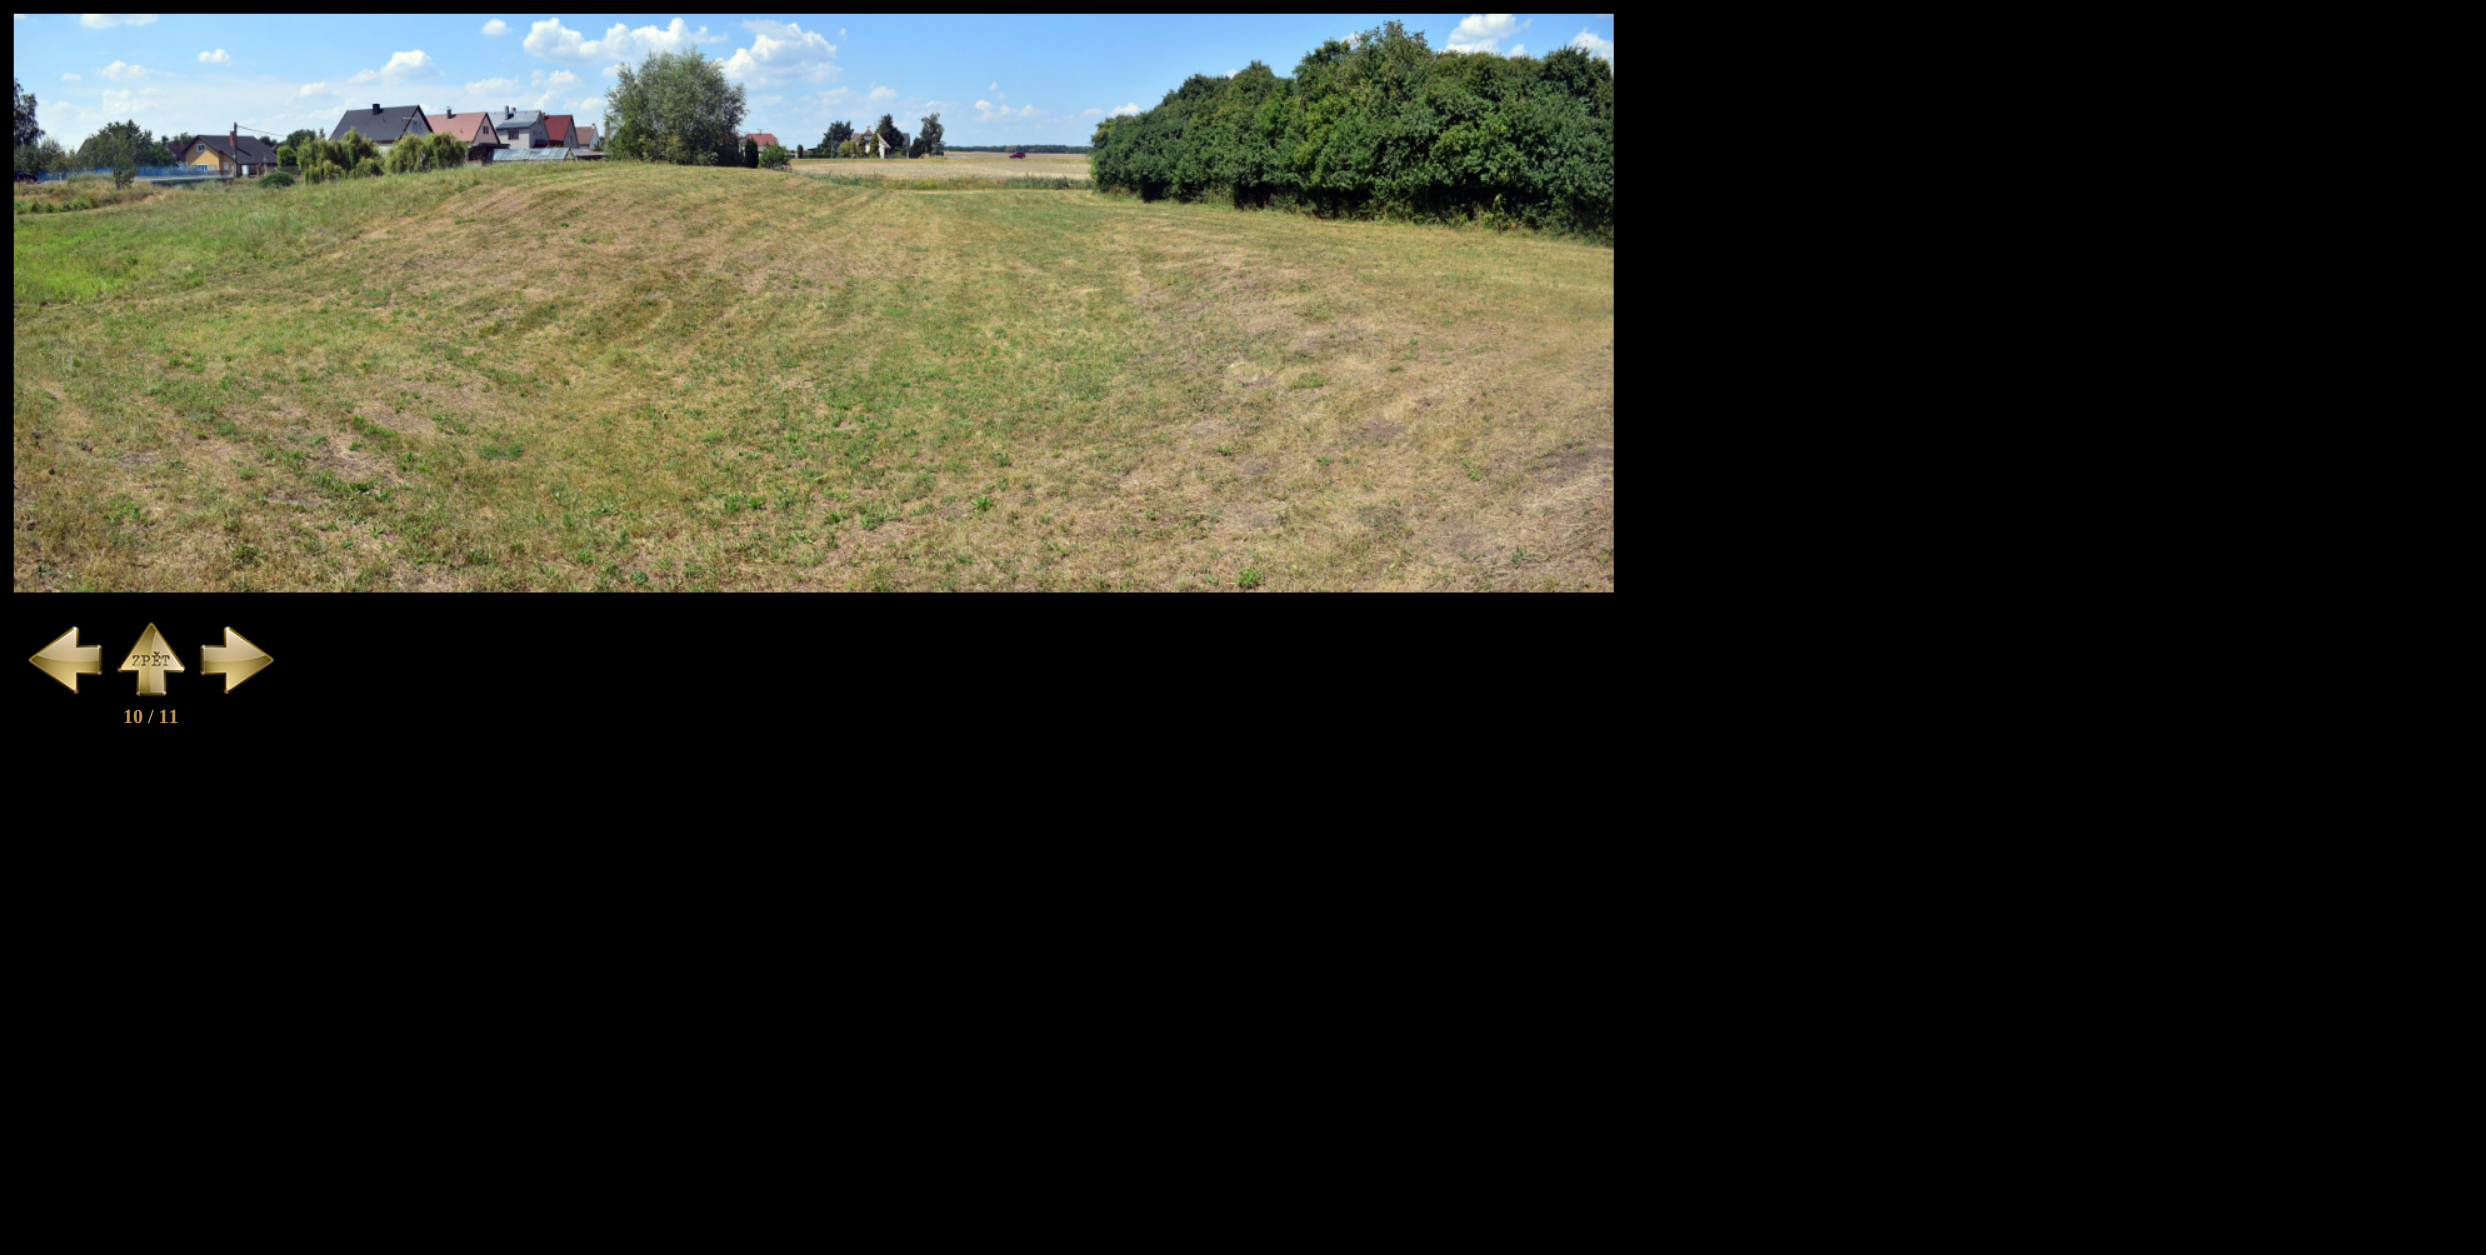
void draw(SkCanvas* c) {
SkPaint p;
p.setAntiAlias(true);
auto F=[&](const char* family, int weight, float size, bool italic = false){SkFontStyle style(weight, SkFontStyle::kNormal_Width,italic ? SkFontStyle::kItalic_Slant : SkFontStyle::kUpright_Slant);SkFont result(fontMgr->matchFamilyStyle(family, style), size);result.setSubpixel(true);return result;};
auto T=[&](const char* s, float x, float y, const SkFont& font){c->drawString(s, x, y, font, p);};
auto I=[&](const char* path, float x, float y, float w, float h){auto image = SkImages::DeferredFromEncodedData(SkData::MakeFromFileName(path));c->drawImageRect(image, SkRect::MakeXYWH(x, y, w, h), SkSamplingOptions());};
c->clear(0xff000000);
I("1.png",13,13,1601,580);
I("2.png",28,626,75,68);
I("3.png",117,622,69,75);
I("4.png",200,626,74,68);
auto f1 = F("Liberation Serif",700,20);
p.setColor(0xffc18f50);
T("10 / 11",123,723,f1);
}
